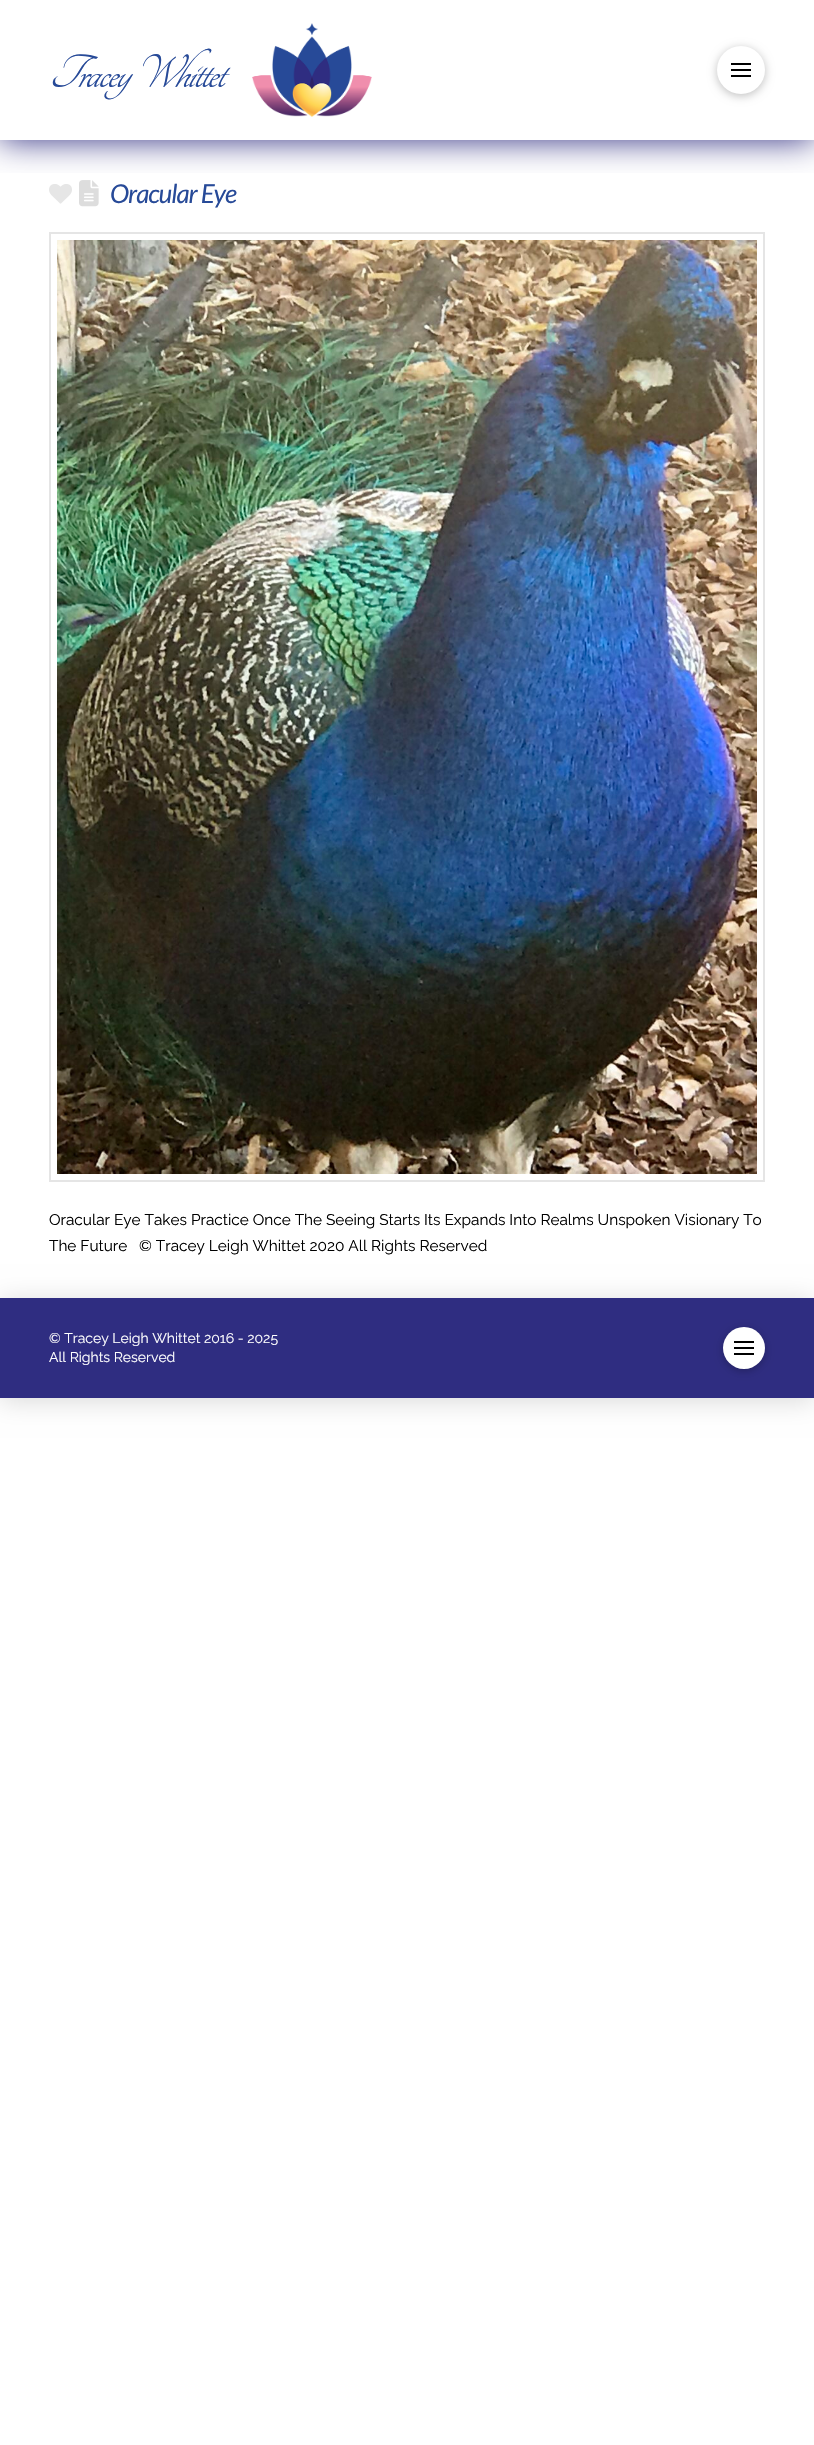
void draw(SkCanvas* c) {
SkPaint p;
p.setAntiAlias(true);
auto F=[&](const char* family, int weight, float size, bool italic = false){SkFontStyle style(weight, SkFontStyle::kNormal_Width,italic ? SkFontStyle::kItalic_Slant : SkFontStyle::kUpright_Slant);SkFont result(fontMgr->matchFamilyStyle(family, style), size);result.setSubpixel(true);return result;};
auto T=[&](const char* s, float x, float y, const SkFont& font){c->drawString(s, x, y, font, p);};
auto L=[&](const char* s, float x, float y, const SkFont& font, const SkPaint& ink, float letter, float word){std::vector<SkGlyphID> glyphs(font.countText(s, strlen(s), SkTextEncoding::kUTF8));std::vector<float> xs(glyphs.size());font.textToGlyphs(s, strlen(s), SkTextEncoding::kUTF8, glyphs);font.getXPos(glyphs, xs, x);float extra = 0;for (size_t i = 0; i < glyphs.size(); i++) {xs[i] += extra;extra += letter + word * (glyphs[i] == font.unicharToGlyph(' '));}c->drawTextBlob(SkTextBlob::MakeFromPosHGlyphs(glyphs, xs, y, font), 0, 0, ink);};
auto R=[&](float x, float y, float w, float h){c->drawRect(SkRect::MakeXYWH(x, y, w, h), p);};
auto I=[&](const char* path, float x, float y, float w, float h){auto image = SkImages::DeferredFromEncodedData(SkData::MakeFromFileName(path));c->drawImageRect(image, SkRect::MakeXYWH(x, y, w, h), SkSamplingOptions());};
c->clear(0xffffffff);
I("2.png",49,184,23,20);
I("3.png",79,180,20,27);
c->save();
c->clipRect(SkRect::MakeXYWH(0,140,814,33));
p.setColor(0xff2f2d81);
p.setMaskFilter(SkMaskFilter::MakeBlur(kNormal_SkBlurStyle, 16));
c->drawRect(SkRect::MakeXYWH(0,0,814,140),p);
p.setMaskFilter(nullptr);
c->restore();
auto f1 = F("Tangerine",400,51,true);
p.setColor(0xff274a98);
L("Tracey Whittet",49,87,f1,p,-1.75,0);
I("1.png",252,23,120,94);
p.setColor(0x40000000);
p.setMaskFilter(SkMaskFilter::MakeBlur(kNormal_SkBlurStyle, 5));
c->drawRoundRect(SkRect::MakeXYWH(717,48,48,48),24,24,p);
p.setMaskFilter(nullptr);
p.setColor(0xffffffff);
c->drawCircle(741,70,24,p);
p.setColor(0xff000000);
R(731,63,20,2);
R(731,69,20,2);
R(731,75,20,2);
auto f2 = F("Lato",400,26,true);
p.setColor(0xff274a98);
L("Oracular Eye",110,203,f2,p,-1,0);
p.setStroke(true);
p.setStrokeWidth(2);
p.setColor(0xffe5e5e5);
c->drawRect(SkRect::MakeXYWH(50,233,714,948),p);
I("4.png",57,240,700,934);
auto f3 = F("Raleway",400,15.4);
p.setStroke(false);
p.setColor(0xff000000);
T("Oracular Eye Takes Practice Once The Seeing Starts Its Expands Into Realms Unspoken Visionary To",49,1225,f3);
T("The Future   © Tracey Leigh Whittet 2020 All Rights Reserved",49,1251,f3);
p.setColor(0x26000000);
p.setMaskFilter(SkMaskFilter::MakeBlur(kNormal_SkBlurStyle, 12.5));
c->drawRect(SkRect::MakeXYWH(0,1301,814,100),p);
p.setMaskFilter(nullptr);
p.setColor(0xff2f2d81);
R(0,1298,814,100);
auto f4 = F("Raleway",400,14);
p.setColor(0xffffffff);
T("© Tracey Leigh Whittet 2016 - 2025",49,1343,f4);
T("All Rights Reserved",49,1362,f4);
p.setColor(0x40000000);
p.setMaskFilter(SkMaskFilter::MakeBlur(kNormal_SkBlurStyle, 4.5));
c->drawRoundRect(SkRect::MakeXYWH(723,1329,42,42),21,21,p);
p.setMaskFilter(nullptr);
p.setColor(0xffffffff);
c->drawCircle(744,1348,21,p);
p.setColor(0xff000000);
R(734,1341,20,2);
R(734,1347,20,2);
R(734,1353,20,2);
}
